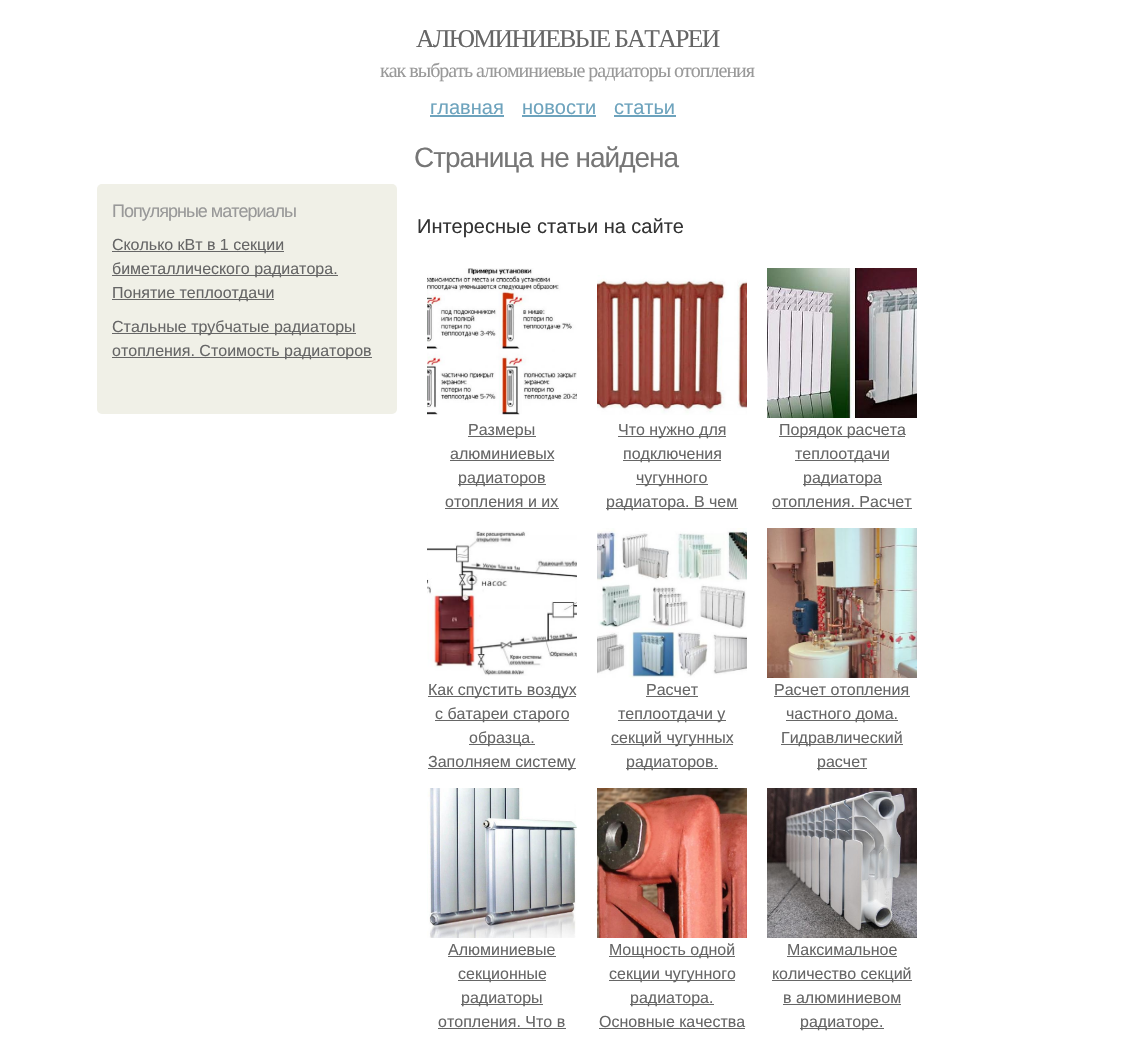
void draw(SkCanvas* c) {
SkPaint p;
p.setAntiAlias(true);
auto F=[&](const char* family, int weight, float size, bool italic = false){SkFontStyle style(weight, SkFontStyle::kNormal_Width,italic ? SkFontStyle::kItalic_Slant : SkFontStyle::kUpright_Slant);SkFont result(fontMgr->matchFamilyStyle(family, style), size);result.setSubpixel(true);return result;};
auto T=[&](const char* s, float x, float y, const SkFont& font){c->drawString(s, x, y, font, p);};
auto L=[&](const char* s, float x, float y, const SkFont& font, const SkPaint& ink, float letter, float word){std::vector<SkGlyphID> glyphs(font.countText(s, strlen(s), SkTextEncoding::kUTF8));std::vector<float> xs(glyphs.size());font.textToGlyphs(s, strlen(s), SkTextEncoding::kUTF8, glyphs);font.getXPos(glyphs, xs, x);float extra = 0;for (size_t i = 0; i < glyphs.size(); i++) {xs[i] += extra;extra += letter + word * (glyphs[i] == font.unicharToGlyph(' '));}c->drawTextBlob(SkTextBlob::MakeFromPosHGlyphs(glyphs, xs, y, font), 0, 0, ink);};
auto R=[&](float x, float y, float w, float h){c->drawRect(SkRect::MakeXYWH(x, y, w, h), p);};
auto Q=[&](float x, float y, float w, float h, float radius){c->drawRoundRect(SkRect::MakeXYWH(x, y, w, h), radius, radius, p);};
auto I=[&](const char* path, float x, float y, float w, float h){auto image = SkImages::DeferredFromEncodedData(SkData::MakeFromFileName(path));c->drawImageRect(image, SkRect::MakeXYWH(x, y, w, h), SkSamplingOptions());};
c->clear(0xffffffff);
auto f1 = F("Liberation Serif",400,25.6);
p.setColor(0xff666666);
L("АЛЮМИНИЕВЫЕ БАТАРЕИ",416,47,f1,p,-1.6,0);
auto f2 = F("Liberation Serif",400,20);
p.setColor(0xff999999);
L("как выбрать алюминиевые радиаторы отопления",380,77,f2,p,-1,0);
auto f3 = F("Liberation Sans",400,20);
p.setColor(0xff6da3bd);
T("главная",430,114,f3);
R(430,115,74,2);
T("новости",522,114,f3);
R(522,115,74,2);
T("статьи",614,114,f3);
R(614,115,62,2);
auto f4 = F("Liberation Sans",400,28);
p.setColor(0xff767676);
L("Страница не найдена",414,167,f4,p,-1,0);
p.setColor(0xfff0f0e7);
Q(97,184,300,230,5);
auto f5 = F("Liberation Sans",400,18);
p.setColor(0xff999999);
L("Популярные материалы",112,217,f5,p,-1,0);
p.setColor(0xff666666);
R(112,251,172,1);
auto f6 = F("Liberation Sans",400,16);
T("Сколько кВт в 1 секции",112,250,f6);
R(112,275,226,1);
T("биметаллического радиатора.",112,274,f6);
R(112,299,162,1);
T("Понятие теплоотдачи",112,298,f6);
R(112,333,244,1);
T("Стальные трубчатые радиаторы",112,332,f6);
R(112,357,260,1);
T("отопления. Стоимость радиаторов",112,356,f6);
p.setColor(0xff333333);
T("Интересные статьи на сайте",417,233,f3);
I("1.png",427,268,150,147);
p.setColor(0xff666666);
R(468,436,68,1);
T("Размеры",468,435,f6);
T("алюминиевых",450,459,f6);
R(450,460,104,1);
R(458,484,88,1);
T("радиаторов",458,483,f6);
T("отопления и их",445,507,f6);
R(445,508,114,1);
I("2.png",597,275,150,140);
R(618,436,108,1);
T("Что нужно для",618,435,f6);
R(623,460,98,1);
T("подключения",623,459,f6);
R(636,484,72,1);
T("чугунного",636,483,f6);
R(606,508,132,1);
T("радиатора. В чем",606,507,f6);
I("3.png",767,268,150,150);
R(779,436,126,1);
T("Порядок расчета",779,435,f6);
R(795,460,94,1);
T("теплоотдачи",795,459,f6);
R(803,484,79,1);
T("радиатора",803,483,f6);
T("отопления. Расчет",772,507,f6);
R(772,508,140,1);
I("4.png",427,531,150,145);
R(428,696,148,1);
T("Как спустить воздух",428,695,f6);
R(435,720,134,1);
T("с батареи старого",435,719,f6);
R(469,744,66,1);
T("образца.",469,743,f6);
R(428,768,148,1);
T("Заполняем систему",428,767,f6);
I("5.png",597,528,150,150);
T("Расчет",646,695,f6);
R(646,696,52,1);
R(618,720,108,1);
T("теплоотдачи у",618,719,f6);
R(611,744,122,1);
T("секций чугунных",611,743,f6);
R(626,768,92,1);
T("радиаторов.",626,767,f6);
I("6.png",767,528,150,150);
T("Расчет отопления",774,695,f6);
R(774,696,136,1);
R(786,720,112,1);
T("частного дома.",786,719,f6);
R(781,744,122,1);
T("Гидравлический",781,743,f6);
R(817,768,50,1);
T("расчет",817,767,f6);
I("7.png",427,788,150,150);
T("Алюминиевые",448,955,f6);
R(448,956,108,1);
R(458,980,88,1);
T("секционные",458,979,f6);
R(461,1004,82,1);
T("радиаторы",461,1003,f6);
T("отопления. Что в",438,1027,f6);
R(438,1028,128,1);
I("8.png",597,788,150,150);
R(609,956,126,1);
T("Мощность одной",609,955,f6);
R(609,980,126,1);
T("секции чугунного",609,979,f6);
R(630,1004,84,1);
T("радиатора.",630,1003,f6);
T("Основные качества",599,1027,f6);
R(599,1028,146,1);
I("9.png",767,788,150,150);
T("Максимальное",787,955,f6);
R(787,956,110,1);
R(772,980,140,1);
T("количество секций",772,979,f6);
T("в алюминиевом",783,1003,f6);
R(783,1004,118,1);
R(800,1028,84,1);
T("радиаторе.",800,1027,f6);
}
